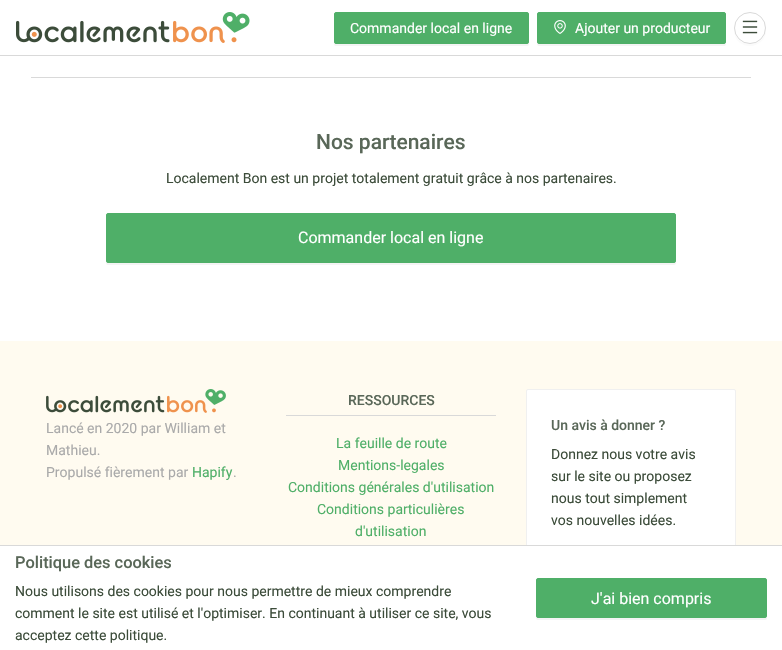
void draw(SkCanvas* c) {
SkPaint p;
p.setAntiAlias(true);
auto F=[&](const char* family, int weight, float size, bool italic = false){SkFontStyle style(weight, SkFontStyle::kNormal_Width,italic ? SkFontStyle::kItalic_Slant : SkFontStyle::kUpright_Slant);SkFont result(fontMgr->matchFamilyStyle(family, style), size);result.setSubpixel(true);return result;};
auto T=[&](const char* s, float x, float y, const SkFont& font){c->drawString(s, x, y, font, p);};
auto R=[&](float x, float y, float w, float h){c->drawRect(SkRect::MakeXYWH(x, y, w, h), p);};
auto I=[&](const char* path, float x, float y, float w, float h){auto image = SkImages::DeferredFromEncodedData(SkData::MakeFromFileName(path));c->drawImageRect(image, SkRect::MakeXYWH(x, y, w, h), SkSamplingOptions());};
auto P=[&](const char* data, bool evenOdd = false){SkPath result = *SkParsePath::FromSVGString(data);if (evenOdd) result.setFillType(SkPathFillType::kEvenOdd);return result;};
c->clear(0xffffffff);
p.setColor(0xffd9d9d9);
R(0,55,782,1);
I("1.png",16,12,234,31);
p.setColor(0xfff4f4f4);
c->drawPath(P("M334 42c0 2 0 4 2 4h191c2 0 2-2 2-4c0 1-1 2-2 2h-191c-1 0-2-1-2-2z"),p);
p.setColor(0xff4faf68);
c->drawRoundRect(SkRect::MakeXYWH(334.5,12.5,194,31),1.5,1.5,p);
p.setStroke(true);
p.setStrokeWidth(1);
c->drawRoundRect(SkRect::MakeXYWH(334.5,12.5,194,31),1.5,1.5,p);
auto f1 = F("Roboto",400,14);
p.setStroke(false);
p.setColor(0xffffffff);
T("Commander local en ligne",350,33,f1);
p.setColor(0xfff4f4f4);
c->drawPath(P("M537 42c0 1 0 4 2 4h186c1-1 1-3 1-4c0 1-1 2-2 2h-185c-1 0-2-1-2-2z"),p);
p.setColor(0xff4faf68);
c->drawRoundRect(SkRect::MakeXYWH(537.5,12.5,188,31),1.5,1.5,p);
p.setStroke(true);
c->drawRoundRect(SkRect::MakeXYWH(537.5,12.5,188,31),1.5,1.5,p);
I("2.png",554,20,12,14);
p.setStroke(false);
p.setColor(0xffffffff);
T("Ajouter un producteur",575,33,f1);
p.setColor(0xfffbfbfb);
c->drawPath(P("M734 29c0 3.5 1 7 2.5 10c9.5 13.5 30.5 6 29.5-10c-1.5 20-30.5 20-32 0z"),p);
p.setStroke(true);
p.setColor(0xffd9d9d9);
c->drawCircle(750,28,15.5,p);
I("3.png",742,20,16,14);
p.setStroke(false);
R(31,77,720,1);
auto f2 = F("Roboto",500,21);
p.setColor(0xff596758);
T("Nos partenaires",316,149,f2);
p.setColor(0xff3c4c3a);
T("Localement Bon est un projet totalement gratuit grâce à nos partenaires.",166,183,f1);
p.setColor(0xfff4f4f4);
c->drawPath(P("M106 261c0 2 0 4 2 4h566l2-1v-3c0 1-1 2-2 2h-566c-1 0-2-1-2-2z"),p);
p.setColor(0xff4faf68);
c->drawRoundRect(SkRect::MakeXYWH(106.5,213.5,569,49),1.5,1.5,p);
p.setStroke(true);
c->drawRoundRect(SkRect::MakeXYWH(106.5,213.5,569,49),1.5,1.5,p);
auto f3 = F("Roboto",400,16);
p.setStroke(false);
p.setColor(0xffffffff);
T("Commander local en ligne",298,243,f3);
p.setColor(0xfffffbf0);
R(0,341,782,204);
I("4.png",46,389,180,24);
p.setColor(0xffaaaaaa);
T("Lancé en 2020 par William et",46,433,f1);
T("Mathieu.",46,455,f1);
T("Propulsé fièrement par",46,477,f1);
p.setColor(0xff4faf68);
T("Hapify",192,477,f1);
p.setColor(0xffaaaaaa);
T(".",233,477,f1);
p.setColor(0xffd9d9d9);
R(286,415,210,1);
auto f4 = F("Roboto",500,14);
p.setColor(0xff596758);
T("RESSOURCES",348,405,f4);
p.setColor(0xff4faf68);
T("La feuille de route",336,448,f1);
T("Mentions-legales",338,470,f1);
T("Conditions générales d'utilisation",288,492,f1);
T("Conditions particulières",317,514,f1);
T("d'utilisation",355,536,f1);
p.setColor(0xffffffff);
c->drawRoundRect(SkRect::MakeXYWH(526.5,389.5,209,212),1.5,1.5,p);
p.setStroke(true);
p.setColor(0xfff0f0f0);
c->drawRoundRect(SkRect::MakeXYWH(526.5,389.5,209,212),1.5,1.5,p);
p.setStroke(false);
p.setColor(0xff596758);
T("Un avis à donner ?",551,430,f4);
p.setColor(0xff3c4c3a);
T("Donnez nous votre avis",551,459,f1);
T("sur le site ou proposez",551,481,f1);
T("nous tout simplement",551,503,f1);
T("vos nouvelles idées.",551,525,f1);
p.setColor(0xffffffff);
R(526,546,210,56);
p.setColor(0xffd9d9d9);
R(0,545,782,1);
auto f5 = F("Roboto",500,16.4);
p.setColor(0xff596758);
T("Politique des cookies",15,568,f5);
p.setColor(0xff3c4c3a);
T("Nous utilisons des cookies pour nous permettre de mieux comprendre",15,596,f1);
T("comment le site est utilisé et l'optimiser. En continuant à utiliser ce site, vous",15,618,f1);
T("acceptez cette politique.",15,640,f1);
p.setColor(0xfff4f4f4);
c->drawPath(P("M536 616c0 2 0 4 2 4h227c2 0 2-2 2-4c0 1-1 2-2 2h-227c-1 0-2-1-2-2z"),p);
p.setColor(0xff4faf68);
c->drawRoundRect(SkRect::MakeXYWH(536.5,578.5,230,39),1.5,1.5,p);
p.setStroke(true);
c->drawRoundRect(SkRect::MakeXYWH(536.5,578.5,230,39),1.5,1.5,p);
p.setStroke(false);
p.setColor(0xffffffff);
T("J'ai bien compris",591,604,f3);
}
